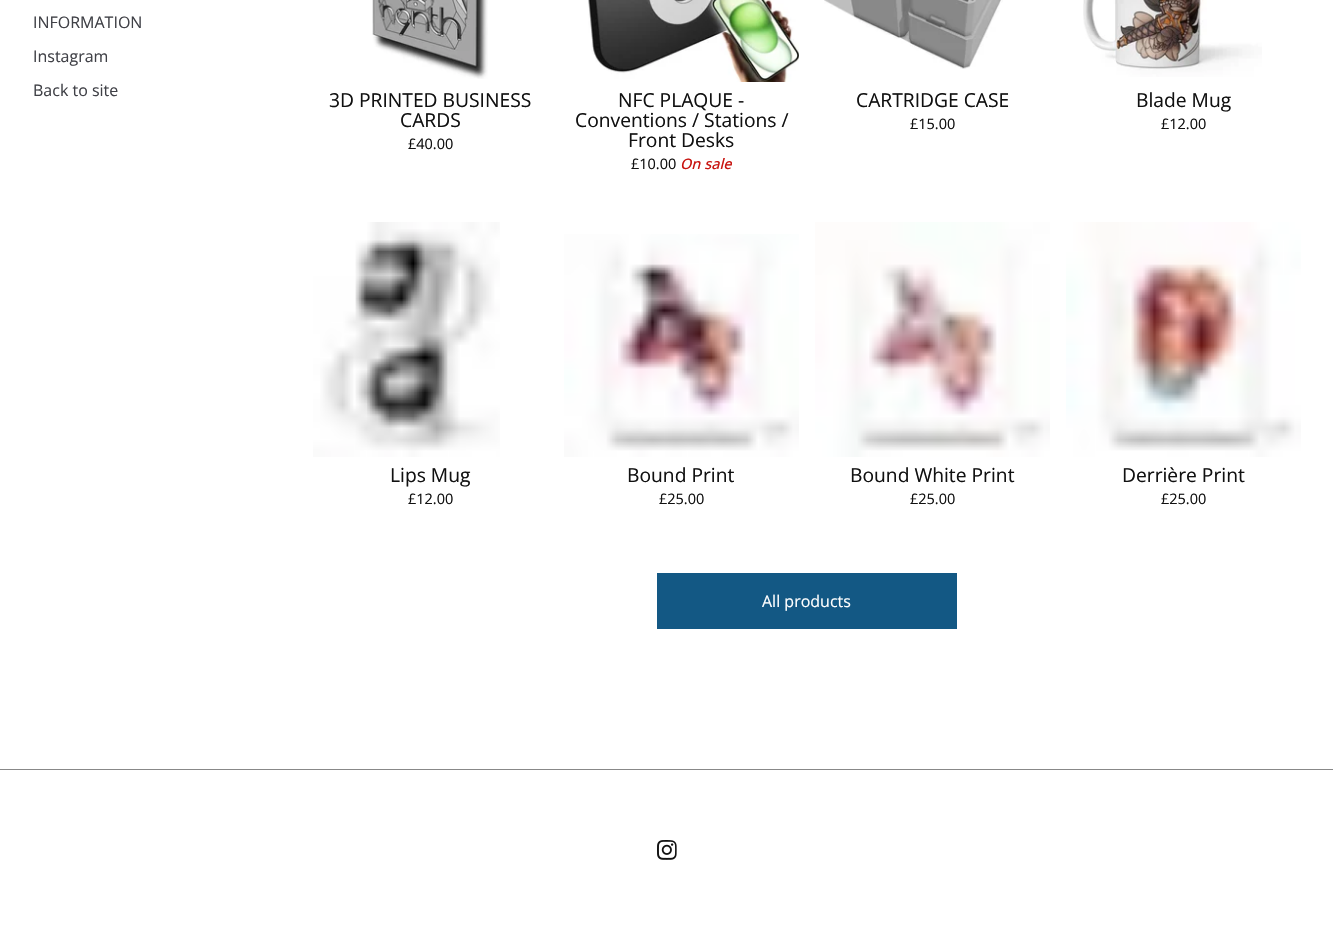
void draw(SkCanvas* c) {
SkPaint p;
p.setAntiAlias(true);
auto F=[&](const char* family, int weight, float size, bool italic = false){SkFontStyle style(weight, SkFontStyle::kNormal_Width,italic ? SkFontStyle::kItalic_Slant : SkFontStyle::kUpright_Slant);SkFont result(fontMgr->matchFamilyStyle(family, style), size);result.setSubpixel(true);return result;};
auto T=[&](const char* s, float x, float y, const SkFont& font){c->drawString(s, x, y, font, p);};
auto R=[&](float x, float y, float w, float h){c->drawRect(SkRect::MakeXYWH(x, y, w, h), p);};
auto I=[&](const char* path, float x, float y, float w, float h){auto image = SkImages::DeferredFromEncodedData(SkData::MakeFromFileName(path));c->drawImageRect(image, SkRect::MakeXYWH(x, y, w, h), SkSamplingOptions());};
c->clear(0xffffffff);
auto f1 = F("Open Sans",400,16);
p.setColor(0xff404147);
T("INFORMATION",33,28,f1);
T("Instagram",33,62,f1);
T("Back to site",33,96,f1);
I("1.png",372,0,116,79);
auto f2 = F("Open Sans",400,19.25);
p.setColor(0xff111111);
T("3D PRINTED BUSINESS",329,107,f2);
T("CARDS",400,127,f2);
auto f3 = F("Open Sans",400,14.5);
T("£40.00",408,149,f3);
I("2.png",588,0,211,82);
T("NFC PLAQUE -",618,107,f2);
T("Conventions / Stations /",575,127,f2);
T("Front Desks",628,147,f2);
T("£10.00",631,169,f3);
auto f4 = F("Open Sans",500,14.5,true);
p.setColor(0xffc81410);
T("On sale",680,169,f4);
I("3.png",824,0,179,69);
p.setColor(0xff111111);
T("CARTRIDGE CASE",856,107,f2);
T("£15.00",910,129,f3);
I("4.png",1083,0,179,77);
T("Blade Mug",1136,107,f2);
T("£12.00",1161,129,f3);
I("5.png",313,222,187,235);
T("Lips Mug",390,482,f2);
T("£12.00",408,504,f3);
I("6.png",564,234,235,223);
T("Bound Print",627,482,f2);
T("£25.00",659,504,f3);
I("7.png",815,222,235,235);
T("Bound White Print",850,482,f2);
T("£25.00",910,504,f3);
I("8.png",1066,222,235,235);
T("Derrière Print",1122,482,f2);
T("£25.00",1161,504,f3);
p.setColor(0xff135884);
R(657,573,300,56);
p.setColor(0xffffffff);
T("All products",762,607,f1);
p.setColor(0xff888888);
R(0,769,1333,1);
I("9.png",657,840,20,20);
}
